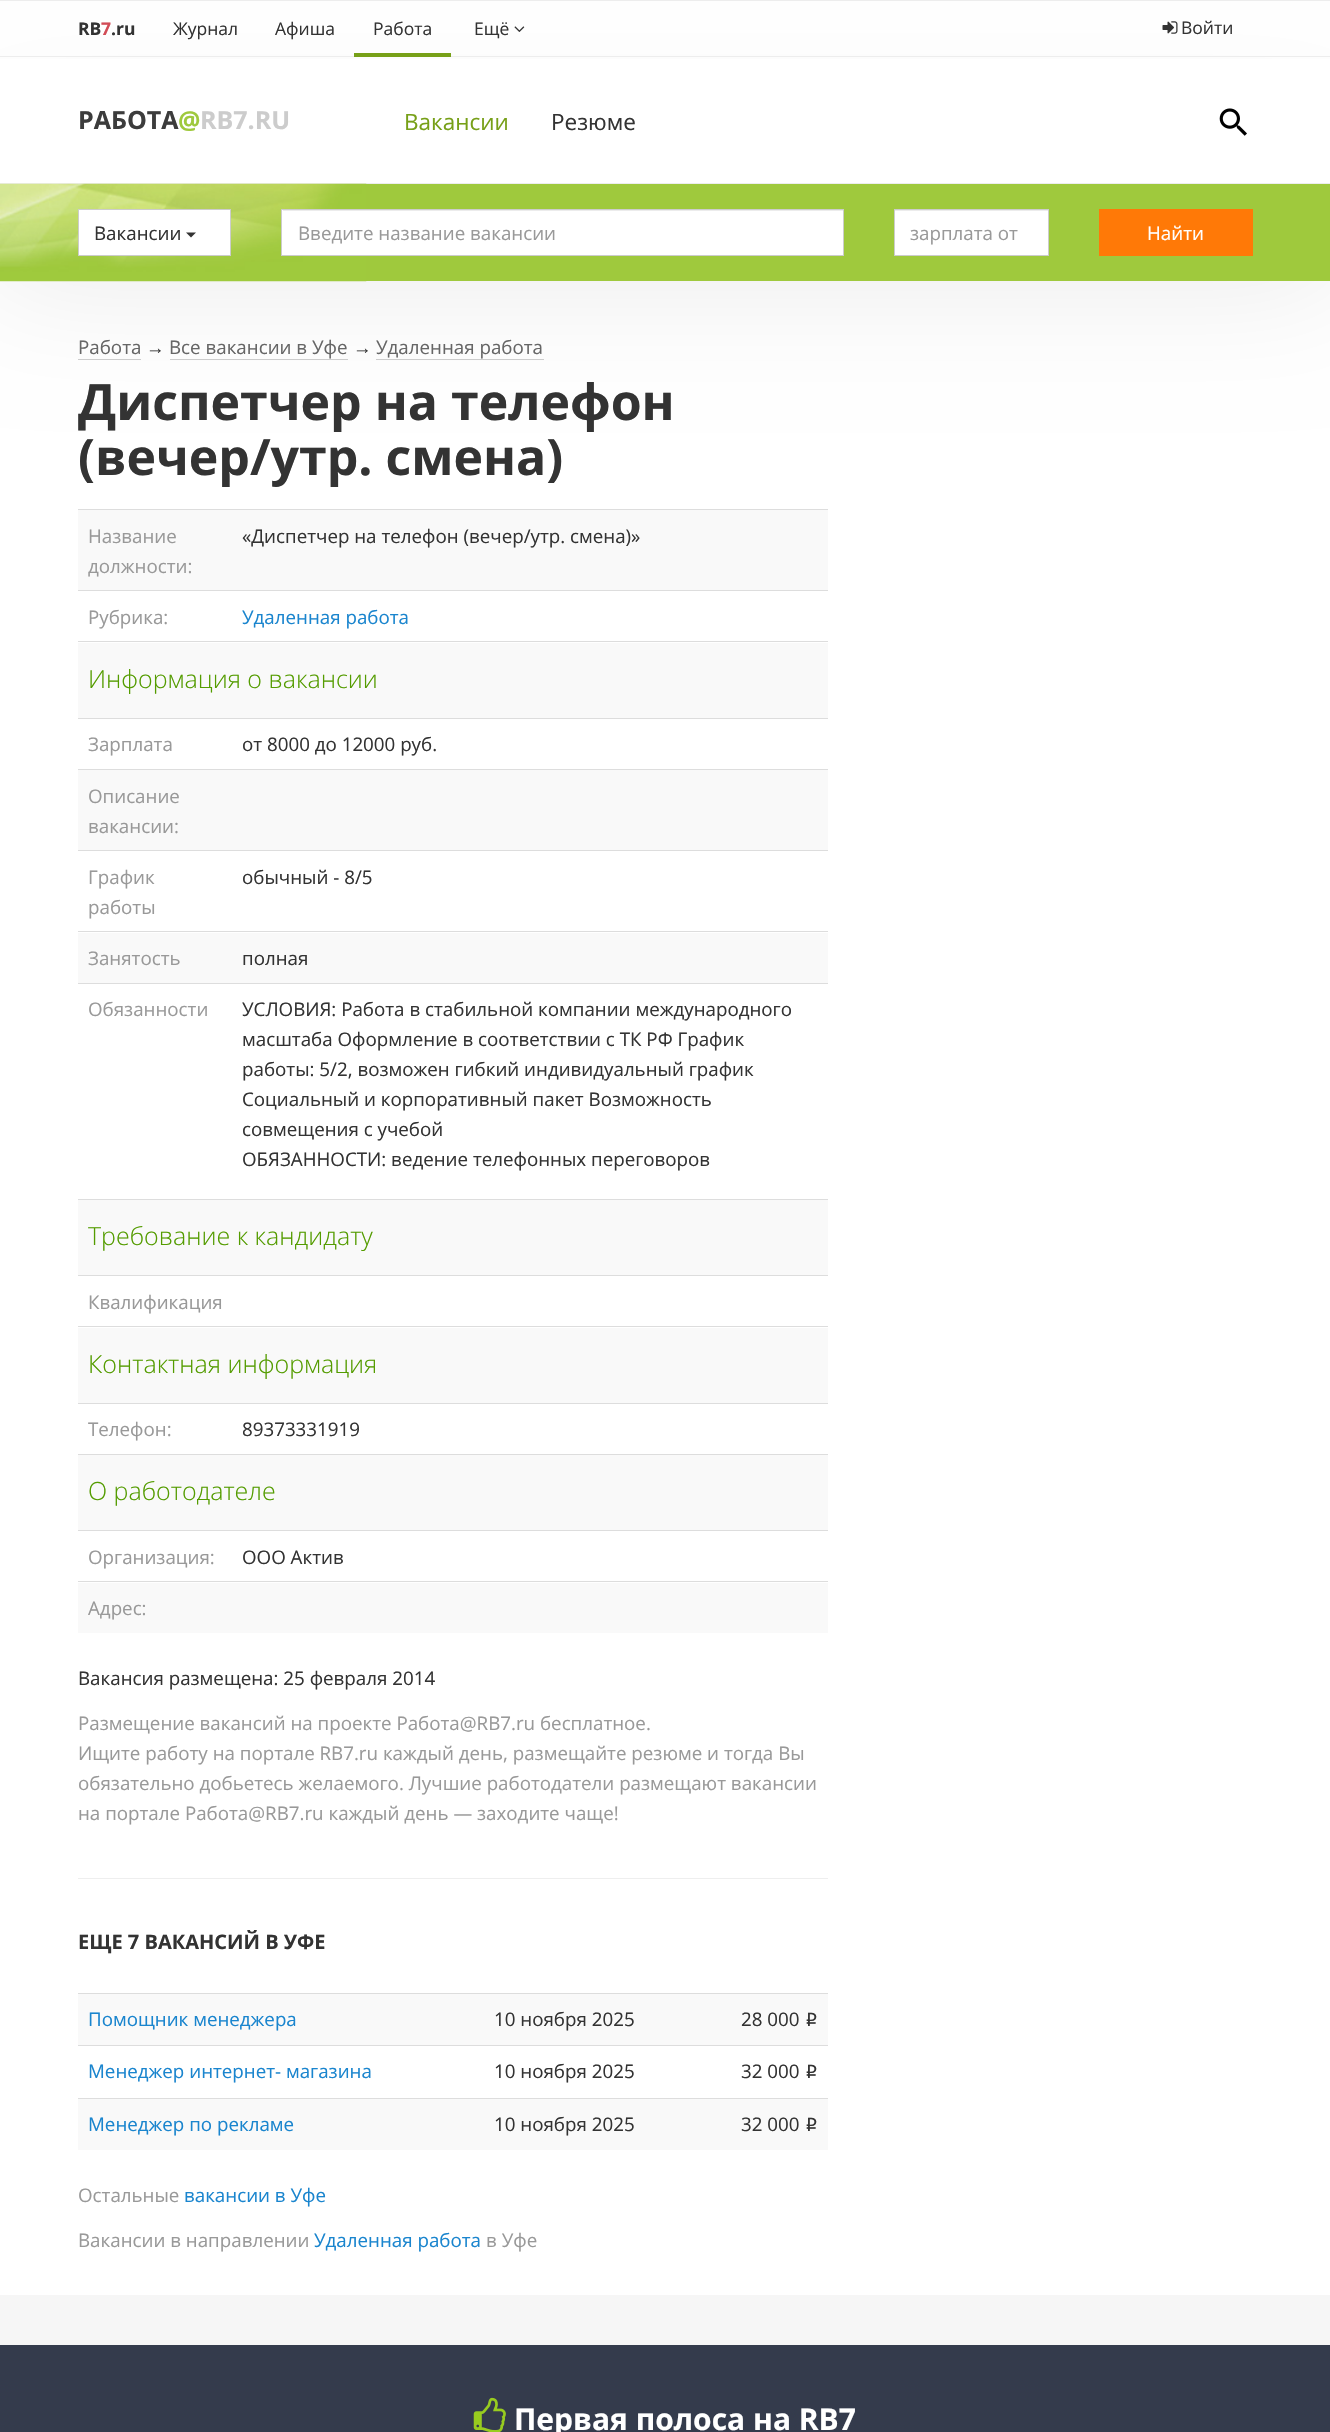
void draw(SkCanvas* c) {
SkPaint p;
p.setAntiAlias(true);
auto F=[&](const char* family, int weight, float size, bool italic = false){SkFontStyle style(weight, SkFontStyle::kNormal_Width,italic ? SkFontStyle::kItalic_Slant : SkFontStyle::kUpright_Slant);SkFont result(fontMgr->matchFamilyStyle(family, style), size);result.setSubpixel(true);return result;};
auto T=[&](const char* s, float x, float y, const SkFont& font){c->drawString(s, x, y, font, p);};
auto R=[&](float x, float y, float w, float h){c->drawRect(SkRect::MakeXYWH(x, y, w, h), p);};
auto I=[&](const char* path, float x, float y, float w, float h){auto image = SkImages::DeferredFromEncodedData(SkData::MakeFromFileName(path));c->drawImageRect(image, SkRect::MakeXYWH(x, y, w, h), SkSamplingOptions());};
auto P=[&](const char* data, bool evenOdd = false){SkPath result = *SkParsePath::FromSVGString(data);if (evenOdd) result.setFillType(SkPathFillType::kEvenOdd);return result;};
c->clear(0xffffffff);
p.setColor(0xffeeeeee);
R(0,0,1330,1);
p.setColor(0x14000000);
p.setMaskFilter(SkMaskFilter::MakeBlur(kNormal_SkBlurStyle, 62.5));
c->drawRect(SkRect::MakeXYWH(-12,131,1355,153),p);
p.setMaskFilter(nullptr);
auto f1 = F("Open Sans",700,17.5);
p.setColor(0xff333333);
T("RB",78,35,f1);
p.setColor(0xffd24c56);
T("7",101,35,f1);
p.setColor(0xff333333);
T(".ru",111,35,f1);
auto f2 = F("Open Sans",400,17.5);
T("Журнал",173,35,f2);
T("Афиша",275,35,f2);
p.setColor(0xffededed);
R(0,56,1330,1);
p.setColor(0xff77a018);
R(354,53,97,4);
p.setColor(0xff333333);
T("Работа",373,35,f2);
T("Ещё",474,35,f2);
I("1.png",514,26,11,6);
I("2.png",1162,21,16,13);
T("Войти",1181,34,f2);
p.setColor(0xffffffff);
R(0,59,1330,124);
p.setColor(0xffededed);
R(0,183,1330,1);
auto f3 = F("Open Sans",700,25);
p.setColor(0xff3c3c3c);
T("РАБОТА",78,129,f3);
p.setColor(0xff9fc93d);
T("@",178,129,f3);
p.setColor(0xffcccccc);
T("RB7.RU",200,129,f3);
auto f4 = F("Open Sans",400,22.5);
p.setColor(0xff77a018);
T("Вакансии",404,130,f4);
p.setColor(0xff333333);
T("Резюме",551,130,f4);
I("3.png",1219,108,28,28);
p.setColor(0xff9fc93d);
R(366,184,964,97);
I("4.png",0,183,367,99);
p.setColor(0xffffffff);
c->drawRect(SkRect::MakeXYWH(78.5,209.5,152,46),p);
p.setStroke(true);
p.setStrokeWidth(1);
p.setColor(0xffcccccc);
c->drawRect(SkRect::MakeXYWH(78.5,209.5,152,46),p);
auto f5 = F("Open Sans",400,18.75);
p.setStroke(false);
p.setColor(0xff333333);
T("Вакансии",94,240,f5);
c->drawPath(P("M186 232.5h10l-5 5z"),p);
p.setColor(0xffffffff);
R(282,210,561,45);
p.setColor(0xffececec);
R(283,210,560,1);
p.setStroke(true);
p.setColor(0xffcccccc);
c->drawRect(SkRect::MakeXYWH(281.5,209.5,562,46),p);
p.setStroke(false);
p.setColor(0xff999999);
T("Введите название вакансии",298,240,f5);
p.setColor(0xffffffff);
R(895,211,153,44);
p.setColor(0xffececec);
R(895,210,153,1);
p.setStroke(true);
p.setColor(0xffcccccc);
c->drawRect(SkRect::MakeXYWH(894.5,209.5,154,46),p);
p.setStroke(false);
p.setColor(0xff999999);
T("зарплата от",910,240,f5);
p.setColor(0xffff7907);
R(1099,209,154,47);
p.setColor(0xffffffff);
T("Найти",1147,240,f5);
p.setColor(0xff666666);
T("Работа",78,354,f5);
p.setColor(0xffcccccc);
R(78,359,63,1);
auto f6 = F("Liberation Sans",400,18.75);
p.setColor(0xff333333);
T("→",146,354,f6);
p.setColor(0xff666666);
T("Все вакансии в Уфе",169,354,f5);
p.setColor(0xffcccccc);
R(170,359,178,1);
p.setColor(0xff333333);
T("→",353,354,f6);
p.setColor(0xff666666);
T("Удаленная работа",376,354,f5);
p.setColor(0xffcccccc);
R(376,359,168,1);
auto f7 = F("Open Sans",700,50);
p.setColor(0xff333333);
T("Диспетчер на телефон",78,420,f7);
T("(вечер/утр. смена)",78,475,f7);
p.setColor(0xfff9f9f9);
R(78,510,750,80);
p.setColor(0xff999999);
T("Название",88,543,f5);
T("должности:",88,573,f5);
p.setColor(0xffdddddd);
R(78,509,750,1);
p.setColor(0xff333333);
T("«Диспетчер на телефон (вечер/утр. смена)»",242,543,f5);
p.setColor(0xff999999);
T("Рубрика:",88,624,f5);
p.setColor(0xffdddddd);
R(78,590,750,1);
p.setColor(0xff1a85ce);
T("Удаленная работа",242,624,f5);
p.setColor(0xfff9f9f9);
R(78,643,750,75);
p.setColor(0xffdddddd);
R(78,641,750,1);
auto f8 = F("Open Sans",300,25);
p.setColor(0xff549c00);
T("Информация о вакансии",88,688,f8);
p.setColor(0xff999999);
T("Зарплата",88,751,f5);
p.setColor(0xffdddddd);
R(78,718,750,1);
p.setColor(0xff333333);
T("от 8000 до 12000 руб.",242,751,f5);
p.setColor(0xfff9f9f9);
R(78,770,750,80);
p.setColor(0xffdddddd);
R(78,769,750,1);
p.setColor(0xff999999);
T("Описание",88,803,f5);
T("вакансии:",88,833,f5);
T("График",88,884,f5);
T("работы",88,914,f5);
p.setColor(0xffdddddd);
R(78,850,750,1);
p.setColor(0xff333333);
T("обычный - 8/5",242,884,f5);
p.setColor(0xfff9f9f9);
R(78,933,750,50);
p.setColor(0xff999999);
T("Занятость",88,965,f5);
p.setColor(0xffdddddd);
R(78,931,750,1);
p.setColor(0xff333333);
T("полная",242,965,f5);
p.setColor(0xff999999);
T("Обязанности",88,1016,f5);
p.setColor(0xffdddddd);
R(78,983,750,1);
p.setColor(0xff333333);
T("УСЛОВИЯ: Работа в стабильной компании международного",242,1016,f5);
T("масштаба Оформление в соответствии с ТК РФ График",242,1046,f5);
T("работы: 5/2, возможен гибкий индивидуальный график",242,1076,f5);
T("Социальный и корпоративный пакет Возможность",242,1106,f5);
T("совмещения с учебой",242,1136,f5);
T("ОБЯЗАННОСТИ: ведение телефонных переговоров",242,1166,f5);
p.setColor(0xfff9f9f9);
R(78,1200,750,75);
p.setColor(0xffdddddd);
R(78,1199,750,1);
p.setColor(0xff549c00);
T("Требование к кандидату",88,1245,f8);
p.setColor(0xffdddddd);
R(78,1275,750,1);
p.setColor(0xff999999);
T("Квалификация",88,1309,f5);
p.setColor(0xfff9f9f9);
R(78,1328,750,75);
p.setColor(0xffdddddd);
R(78,1326,750,1);
p.setColor(0xff549c00);
T("Контактная информация",88,1373,f8);
p.setColor(0xff999999);
T("Телефон:",88,1436,f5);
p.setColor(0xffdddddd);
R(78,1403,750,1);
p.setColor(0xff333333);
T("89373331919",242,1436,f5);
p.setColor(0xfff9f9f9);
R(78,1455,750,75);
p.setColor(0xffdddddd);
R(78,1454,750,1);
p.setColor(0xff549c00);
T("О работодателе",88,1500,f8);
p.setColor(0xff999999);
T("Организация:",88,1564,f5);
p.setColor(0xffdddddd);
R(78,1530,750,1);
p.setColor(0xff333333);
T("ООО Актив",242,1564,f5);
p.setColor(0xfff9f9f9);
R(78,1583,750,50);
p.setColor(0xffdddddd);
R(78,1581,750,1);
p.setColor(0xff999999);
T("Адрес:",88,1615,f5);
p.setColor(0xff333333);
T("Вакансия размещена: 25 февраля 2014",78,1685,f5);
p.setColor(0xff999999);
T("Размещение вакансий на проекте Работа@RB7.ru бесплатное.",78,1730,f5);
T("Ищите работу на портале RB7.ru каждый день, размещайте резюме и тогда Вы",78,1760,f5);
T("обязательно добьетесь желаемого. Лучшие работодатели размещают вакансии",78,1790,f5);
T("на портале Работа@RB7.ru каждый день — заходите чаще!",78,1820,f5);
p.setColor(0xffeeeeee);
R(78,1878,750,1);
auto f9 = F("Open Sans",700,20);
p.setColor(0xff333333);
T("ЕЩЕ 7 ВАКАНСИЙ В УФЕ",78,1949,f9);
p.setColor(0xfff9f9f9);
R(78,1994,750,51);
p.setColor(0xff1a85ce);
T("Помощник менеджера",88,2026,f5);
p.setColor(0xff333333);
T("10 ноября 2025",494,2026,f5);
p.setColor(0xffdddddd);
R(78,1993,750,1);
p.setColor(0xff333333);
T("28 000",741,2026,f5);
auto f10 = F("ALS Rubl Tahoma",400,18.75);
T("Р",805,2026,f10);
p.setColor(0xff1a85ce);
T("Менеджер интернет- магазина",88,2078,f5);
p.setColor(0xff333333);
T("10 ноября 2025",494,2078,f5);
p.setColor(0xffdddddd);
R(78,2045,750,1);
p.setColor(0xff333333);
T("32 000",741,2078,f5);
T("Р",805,2078,f10);
p.setColor(0xfff9f9f9);
R(78,2099,750,51);
p.setColor(0xff1a85ce);
T("Менеджер по рекламе",88,2131,f5);
p.setColor(0xff333333);
T("10 ноября 2025",494,2131,f5);
p.setColor(0xffdddddd);
R(78,2098,750,1);
p.setColor(0xff333333);
T("32 000",741,2131,f5);
T("Р",805,2131,f10);
p.setColor(0xff999999);
T("Остальные",78,2202,f5);
p.setColor(0xff1a85ce);
T("вакансии в Уфе",184,2202,f5);
p.setColor(0xff999999);
T("Вакансии в направлении",78,2247,f5);
p.setColor(0xff1a85ce);
T("Удаленная работа",314,2247,f5);
p.setColor(0xff999999);
T("в Уфе",486,2247,f5);
p.setColor(0xfff6f6f6);
R(0,2295,1330,50);
p.setColor(0xff343b4c);
R(0,2345,1330,87);
I("5.png",473,2397,33,35);
auto f11 = F("Open Sans",700,30);
p.setColor(0xffffffff);
T("Первая полоса на RB7",514,2430,f11);
}
